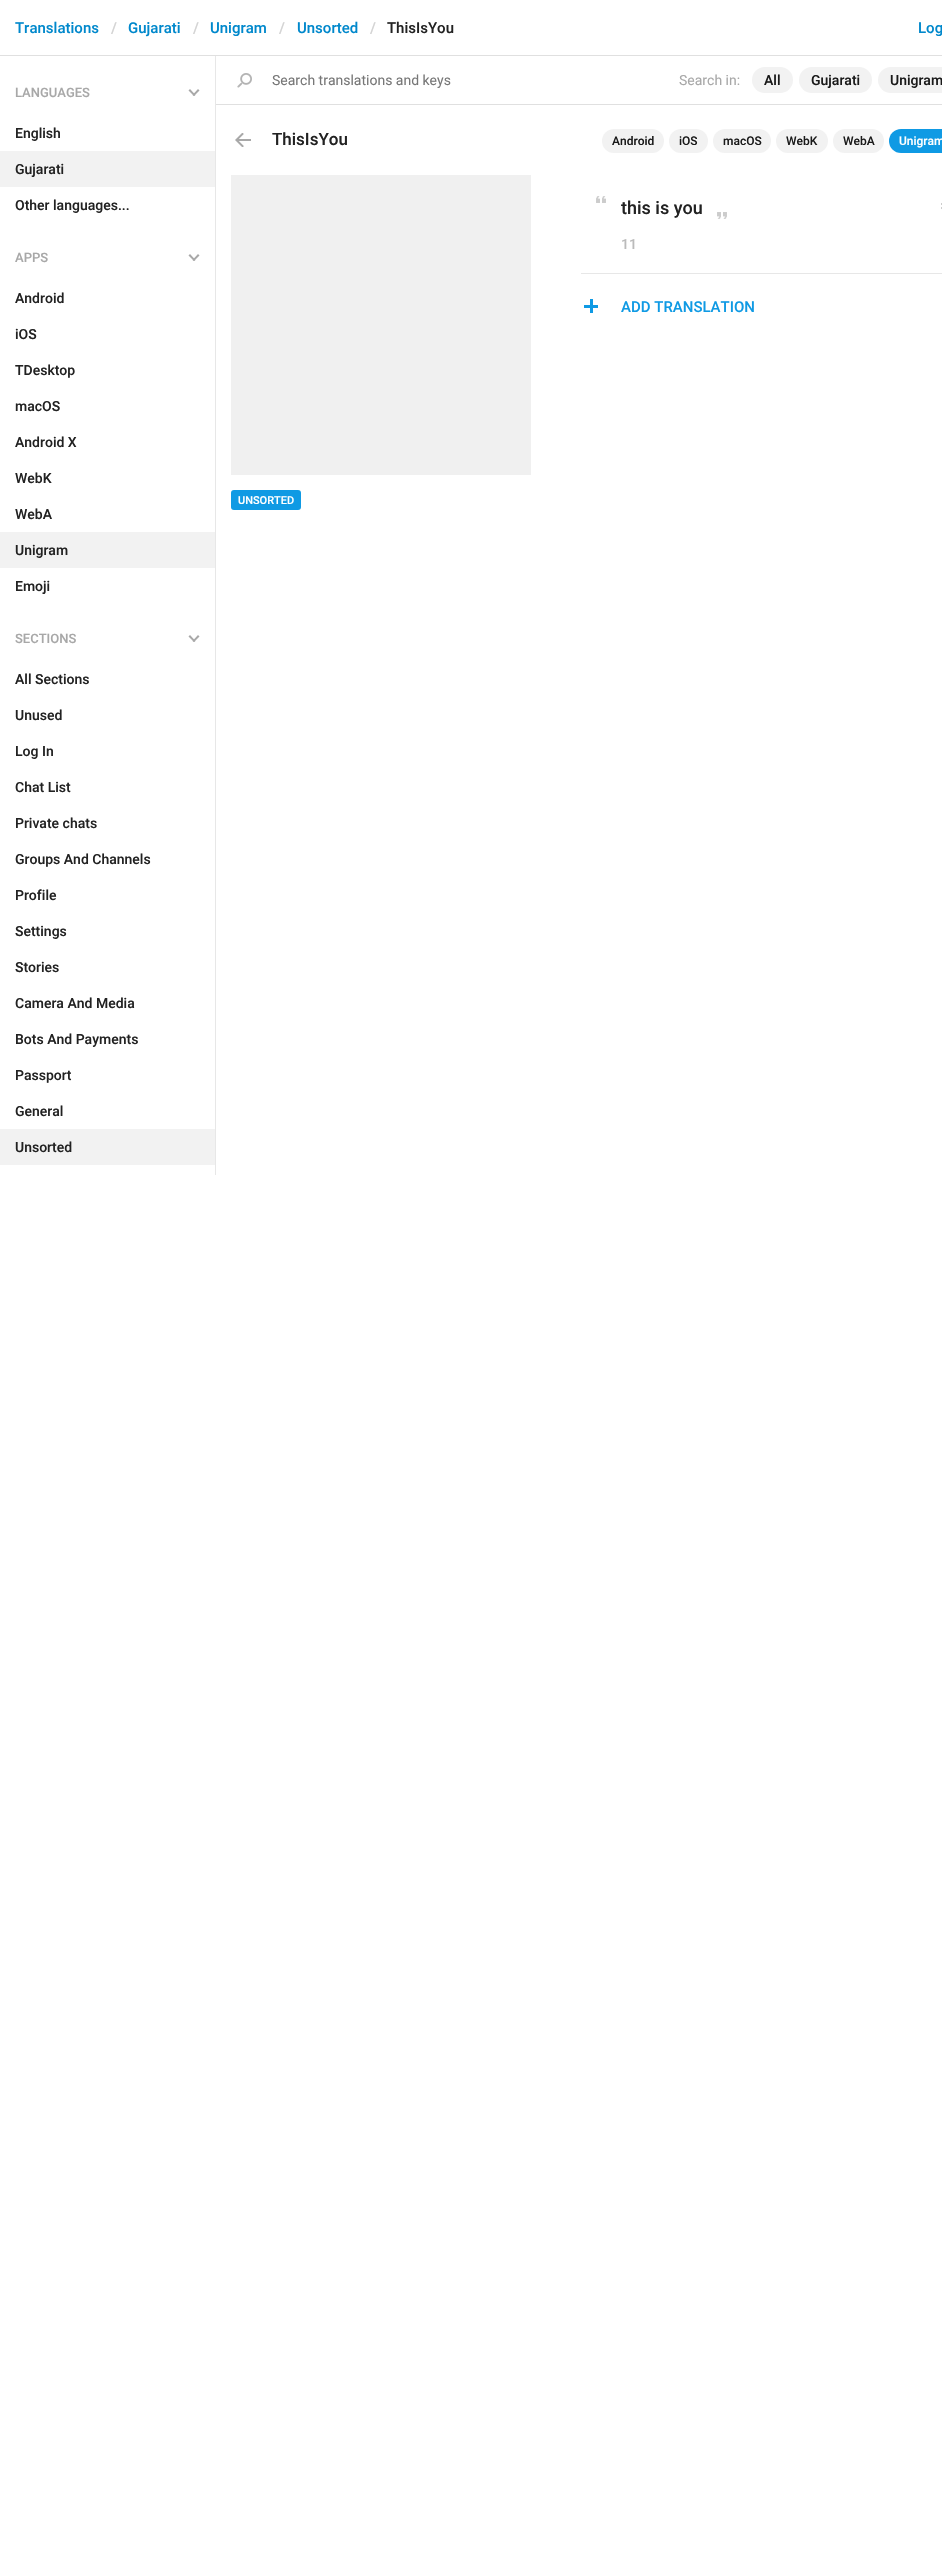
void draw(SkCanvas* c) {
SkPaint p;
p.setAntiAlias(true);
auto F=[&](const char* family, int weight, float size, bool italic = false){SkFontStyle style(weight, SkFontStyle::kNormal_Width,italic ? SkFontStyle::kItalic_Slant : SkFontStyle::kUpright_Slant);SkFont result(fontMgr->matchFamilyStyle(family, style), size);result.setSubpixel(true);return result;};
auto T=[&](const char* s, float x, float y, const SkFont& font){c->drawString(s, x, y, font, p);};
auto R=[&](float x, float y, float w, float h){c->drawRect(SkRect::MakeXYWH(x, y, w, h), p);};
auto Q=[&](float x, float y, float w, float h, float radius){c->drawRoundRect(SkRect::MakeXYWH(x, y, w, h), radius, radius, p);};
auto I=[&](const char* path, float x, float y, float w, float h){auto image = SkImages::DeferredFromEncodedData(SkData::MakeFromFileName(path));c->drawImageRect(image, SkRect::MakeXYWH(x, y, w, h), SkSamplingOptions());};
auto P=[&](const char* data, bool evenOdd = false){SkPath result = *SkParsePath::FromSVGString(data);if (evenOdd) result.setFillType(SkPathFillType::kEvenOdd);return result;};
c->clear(0xffffffff);
p.setColor(0xffe0e0e0);
R(0,55,942,1);
auto f1 = F("Roboto",500,15);
p.setColor(0xff0088cc);
T("Translations",15,33,f1);
p.setColor(0xffd4d4d4);
T("/",111,33,f1);
p.setColor(0xff0088cc);
T("Gujarati",128,33,f1);
p.setColor(0xffd4d4d4);
T("/",193,33,f1);
p.setColor(0xff0088cc);
T("Unigram",210,33,f1);
p.setColor(0xffd4d4d4);
T("/",279,33,f1);
p.setColor(0xff0088cc);
T("Unsorted",297,33,f1);
p.setColor(0xffd4d4d4);
T("/",370,33,f1);
p.setColor(0xff222222);
T("ThisIsYou",387,33,f1);
p.setColor(0xff0088cc);
T("Log",918,33,f1);
p.setColor(0xffe0e0e0);
R(216,104,726,1);
I("1.png",237,73,15,15);
auto f2 = F("Roboto",400,14);
p.setColor(0xff777777);
T("Search translations and keys",272,85,f2);
p.setColor(0xffa8a8a8);
T("Search in:",679,85,f2);
p.setColor(0xfff2f2f2);
Q(752,67,41,26,13);
auto f3 = F("Roboto",500,14);
p.setColor(0xff1a1a1a);
T("All",764,85,f3);
p.setColor(0xfff2f2f2);
Q(799,67,73,26,13);
p.setColor(0xff1a1a1a);
T("Gujarati",811,85,f3);
p.setColor(0xfff2f2f2);
Q(878,67,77,26,13);
p.setColor(0xff1a1a1a);
T("Unigram",890,85,f3);
auto f4 = F("Roboto",500,13);
p.setColor(0xffa8a8a8);
T("LANGUAGES",15,97,f4);
c->drawPath(P("M194 96l-5.5-5.5l1.5-1.5l5.5 6z"),p);
c->drawPath(P("M194 96l-1.5-1l5.5-6l1.5 1.5z"),p);
p.setColor(0xff222222);
T("English",15,138,f3);
p.setColor(0xfff2f2f2);
R(0,151,215,36);
p.setColor(0xff222222);
T("Gujarati",15,174,f3);
T("Other languages...",15,210,f3);
p.setColor(0xffa8a8a8);
T("APPS",15,262,f4);
c->drawPath(P("M194 261l-5.5-5.5l1.5-1.5l5.5 6z"),p);
c->drawPath(P("M194 261l-1.5-1l5.5-6l1.5 1.5z"),p);
p.setColor(0xff222222);
T("Android",15,303,f3);
T("iOS",15,339,f3);
T("TDesktop",15,375,f3);
T("macOS",15,411,f3);
T("Android X",15,447,f3);
T("WebK",15,483,f3);
T("WebA",15,519,f3);
p.setColor(0xfff2f2f2);
R(0,532,215,36);
p.setColor(0xff222222);
T("Unigram",15,555,f3);
T("Emoji",15,591,f3);
p.setColor(0xffa8a8a8);
T("SECTIONS",15,643,f4);
c->drawPath(P("M194 642l-5.5-5.5l1.5-1.5l5.5 6z"),p);
c->drawPath(P("M194 642l-1.5-1l5.5-6l1.5 1.5z"),p);
p.setColor(0xff222222);
T("All Sections",15,684,f3);
T("Unused",15,720,f3);
T("Log In",15,756,f3);
T("Chat List",15,792,f3);
T("Private chats",15,828,f3);
T("Groups And Channels",15,864,f3);
T("Profile",15,900,f3);
T("Settings",15,936,f3);
T("Stories",15,972,f3);
T("Camera And Media",15,1008,f3);
T("Bots And Payments",15,1044,f3);
T("Passport",15,1080,f3);
T("General",15,1116,f3);
p.setColor(0xfff2f2f2);
R(0,1129,215,36);
p.setColor(0xff222222);
T("Unsorted",15,1152,f3);
p.setColor(0xffe7e7e7);
R(215,56,1,1119);
I("2.png",235,133,16,14);
auto f5 = F("Roboto",500,17);
p.setColor(0xff222222);
T("ThisIsYou",272,145,f5);
p.setColor(0xfff2f2f2);
Q(602,129,62,24,12);
auto f6 = F("Roboto",500,12);
p.setColor(0xff1a1a1a);
T("Android",612,145,f6);
p.setColor(0xfff2f2f2);
Q(669,129,39,24,12);
p.setColor(0xff1a1a1a);
T("iOS",679,145,f6);
p.setColor(0xfff2f2f2);
Q(713,129,58,24,12);
p.setColor(0xff1a1a1a);
T("macOS",723,145,f6);
p.setColor(0xfff2f2f2);
Q(776,129,52,24,12);
p.setColor(0xff1a1a1a);
T("WebK",786,145,f6);
p.setColor(0xfff2f2f2);
Q(833,129,51,24,12);
p.setColor(0xff1a1a1a);
T("WebA",843,145,f6);
p.setColor(0xff0f9ae4);
Q(889,129,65,24,12);
p.setColor(0xffffffff);
T("Unigram",899,145,f6);
I("3.png",596,196,10,7);
auto f7 = F("Roboto",500,18);
p.setColor(0xff222222);
T("this is you",621,214,f7);
I("4.png",717,212,10,7);
I("5.png",941,203,1,6);
p.setColor(0xffbbbbbb);
T("11",621,249,f3);
p.setColor(0xffe7e7e7);
R(581,273,361,1);
p.setColor(0xff0f9ae4);
R(584,305,14,3);
R(590,299,3,14);
T("ADD TRANSLATION",621,312,f1);
p.setColor(0xfff0f0f0);
R(231,175,300,300);
p.setColor(0xff0f9ae4);
Q(231,490,70,20,3);
auto f8 = F("Roboto",500,11);
p.setColor(0xffffffff);
T("UNSORTED",238,504,f8);
}
